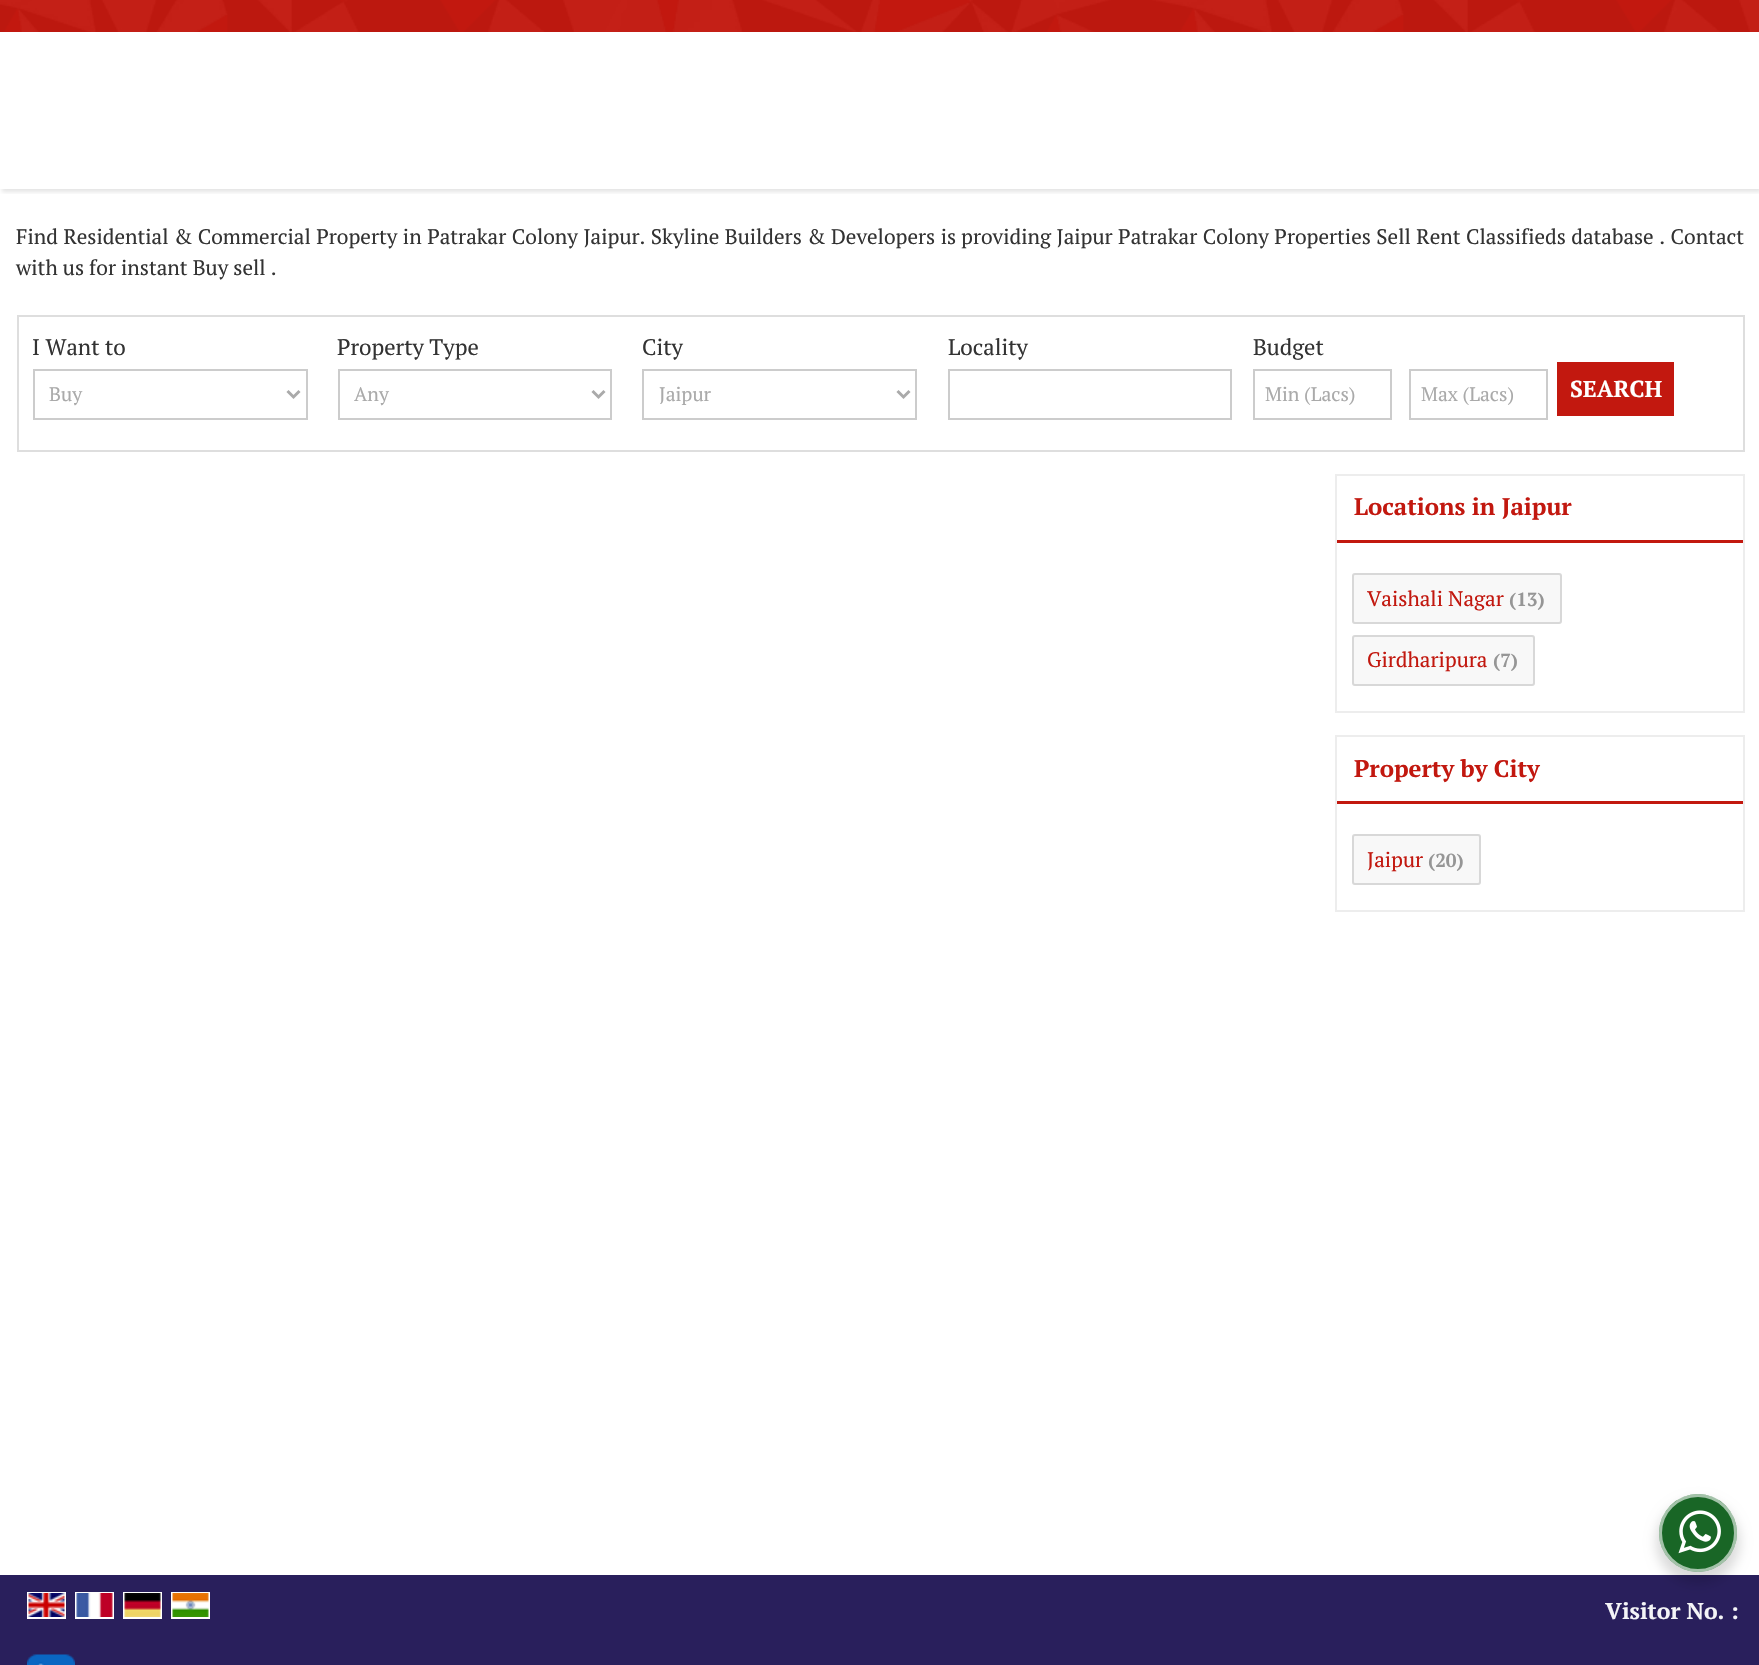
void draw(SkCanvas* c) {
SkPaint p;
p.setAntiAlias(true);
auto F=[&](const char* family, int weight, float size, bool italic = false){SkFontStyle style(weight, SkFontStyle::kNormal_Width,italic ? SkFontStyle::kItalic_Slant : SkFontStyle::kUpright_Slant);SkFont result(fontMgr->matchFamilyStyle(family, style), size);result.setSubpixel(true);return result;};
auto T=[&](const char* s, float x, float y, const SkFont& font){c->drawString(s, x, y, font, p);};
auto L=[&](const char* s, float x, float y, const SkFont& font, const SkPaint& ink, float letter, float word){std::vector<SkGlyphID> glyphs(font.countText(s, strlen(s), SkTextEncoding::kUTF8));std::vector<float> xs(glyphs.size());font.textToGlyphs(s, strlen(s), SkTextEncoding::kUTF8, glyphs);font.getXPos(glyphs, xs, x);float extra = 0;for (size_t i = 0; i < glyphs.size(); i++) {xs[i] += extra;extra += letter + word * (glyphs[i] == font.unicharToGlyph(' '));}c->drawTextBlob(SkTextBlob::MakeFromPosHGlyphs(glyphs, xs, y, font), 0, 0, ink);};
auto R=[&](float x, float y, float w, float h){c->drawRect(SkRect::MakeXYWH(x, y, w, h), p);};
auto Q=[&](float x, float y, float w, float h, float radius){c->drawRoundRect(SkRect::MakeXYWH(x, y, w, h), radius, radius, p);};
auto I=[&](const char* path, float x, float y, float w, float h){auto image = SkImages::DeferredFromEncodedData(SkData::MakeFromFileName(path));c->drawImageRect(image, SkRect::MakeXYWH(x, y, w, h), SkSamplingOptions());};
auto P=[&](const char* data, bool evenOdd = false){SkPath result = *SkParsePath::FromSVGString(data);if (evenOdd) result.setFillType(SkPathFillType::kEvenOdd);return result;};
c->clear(0xffffffff);
c->save();
c->clipRect(SkRect::MakeXYWH(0,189,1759,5));
p.setColor(0x1a000000);
p.setMaskFilter(SkMaskFilter::MakeBlur(kNormal_SkBlurStyle, 2));
c->drawRect(SkRect::MakeXYWH(2,-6,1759,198),p);
p.setMaskFilter(nullptr);
c->restore();
p.setColor(0xffc2180f);
R(0,0,1759,32);
I("1.png",0,0,1759,32);
auto f1 = F("PT Serif",400,21);
p.setColor(0xff333333);
L("Find Residential & Commercial Property in Patrakar Colony Jaipur. Skyline Builders & Developers is",16,244,f1,p,0,.4);
L("providing Jaipur Patrakar Colony Properties Sell Rent Classifieds database . Contact",961,244,f1,p,0,.4);
T("with us for instant Buy sell .",16,275,f1);
p.setStroke(true);
p.setStrokeWidth(2);
p.setColor(0xffdedede);
c->drawRect(SkRect::MakeXYWH(18,316,1726,135),p);
auto f2 = F("PT Serif",400,22.5);
p.setStroke(false);
p.setColor(0xff333333);
T("I Want to",32,355,f2);
p.setStroke(true);
p.setColor(0xffcccccc);
c->drawRect(SkRect::MakeXYWH(34,370,273,49),p);
p.setStrokeWidth(3);
p.setColor(0xffaaaaaa);
c->drawPath(P("M287.5 391l6 6l6-6"),p);
auto f3 = F("PT Serif",400,19.5);
p.setStroke(false);
T("Buy",49,401,f3);
p.setColor(0xff333333);
T("Property Type",337,355,f2);
p.setStroke(true);
p.setStrokeWidth(2);
p.setColor(0xffcccccc);
c->drawRect(SkRect::MakeXYWH(339,370,272,49),p);
p.setStrokeWidth(3);
p.setColor(0xffaaaaaa);
c->drawPath(P("M592.5 391l6 6l6-6"),p);
p.setStroke(false);
T("Any",354,401,f3);
p.setColor(0xff333333);
T("City",642,355,f2);
p.setStroke(true);
p.setStrokeWidth(2);
p.setColor(0xffcccccc);
c->drawRect(SkRect::MakeXYWH(643,370,273,49),p);
p.setStrokeWidth(3);
p.setColor(0xffaaaaaa);
c->drawPath(P("M897.5 391l6 6l6-6"),p);
p.setStroke(false);
T("Jaipur",659,401,f3);
p.setColor(0xff333333);
T("Locality",948,355,f2);
p.setStroke(true);
p.setStrokeWidth(2);
p.setColor(0xffcccccc);
c->drawRect(SkRect::MakeXYWH(949,370,282,49),p);
p.setStroke(false);
p.setColor(0xff333333);
T("Budget",1253,355,f2);
p.setStroke(true);
p.setColor(0xffcccccc);
c->drawRect(SkRect::MakeXYWH(1254,370,137,49),p);
p.setStroke(false);
p.setColor(0xffaaaaaa);
T("Min (Lacs)",1265,401,f3);
p.setStroke(true);
p.setColor(0xffcccccc);
c->drawRect(SkRect::MakeXYWH(1410,370,137,49),p);
p.setStroke(false);
p.setColor(0xffaaaaaa);
T("Max (Lacs)",1421,401,f3);
p.setColor(0xffc2180f);
R(1557,362,117,54);
auto f4 = F("PT Serif",700,23);
p.setColor(0xffffffff);
T("SEARCH",1570,397,f4);
p.setStroke(true);
p.setColor(0xffededed);
c->drawRect(SkRect::MakeXYWH(1336,475,408,237),p);
p.setStroke(false);
p.setColor(0xffc2180f);
R(1337,540,406,3);
auto f5 = F("PT Serif",700,24);
T("Locations in Jaipur",1354,515,f5);
p.setColor(0xfff8f8f8);
Q(1352,573,210,51,3);
p.setStroke(true);
p.setColor(0x21000000);
c->drawRoundRect(SkRect::MakeXYWH(1353,574,208,49),2,2,p);
p.setStroke(false);
p.setColor(0xffc2180f);
T("Vaishali Nagar",1367,606,f1);
auto f6 = F("PT Serif",700,19);
p.setColor(0xff969696);
T("(13)",1509,606,f6);
p.setColor(0xfff8f8f8);
Q(1352,635,183,51,3);
p.setStroke(true);
p.setColor(0x21000000);
c->drawRoundRect(SkRect::MakeXYWH(1353,636,181,49),2,2,p);
p.setStroke(false);
p.setColor(0xffc2180f);
T("Girdharipura",1367,667,f1);
p.setColor(0xff969696);
T("(7)",1493,667,f6);
p.setStroke(true);
p.setColor(0xffededed);
c->drawRect(SkRect::MakeXYWH(1336,736,408,175),p);
p.setStroke(false);
p.setColor(0xffc2180f);
R(1337,801,406,3);
T("Property by City",1354,777,f5);
p.setColor(0xfff8f8f8);
Q(1352,834,129,51,3);
p.setStroke(true);
p.setColor(0x21000000);
c->drawRoundRect(SkRect::MakeXYWH(1353,835,127,49),2,2,p);
p.setStroke(false);
p.setColor(0xffc2180f);
T("Jaipur",1367,867,f1);
p.setColor(0xff969696);
T("(20)",1428,867,f6);
p.setColor(0xff291f5c);
R(0,1575,1759,90);
p.setStroke(true);
p.setColor(0xffffffff);
c->drawRect(SkRect::MakeXYWH(28,1593,37,25),p);
c->drawRect(SkRect::MakeXYWH(76,1593,37,25),p);
c->drawRect(SkRect::MakeXYWH(124,1593,37,25),p);
c->drawRect(SkRect::MakeXYWH(172,1593,37,25),p);
I("2.png",28,1593,37,24);
I("3.png",76,1593,37,24);
I("4.png",124,1593,37,24);
I("5.png",172,1593,37,24);
p.setStroke(false);
p.setColor(0xfff4f4f7);
T("Visitor No. :",1605,1619,f4);
I("6.png",27,1654,48,11);
p.setColor(0x24000000);
p.setMaskFilter(SkMaskFilter::MakeBlur(kNormal_SkBlurStyle, 6));
c->drawRoundRect(SkRect::MakeXYWH(1656,1500,84,84),42,42,p);
p.setMaskFilter(nullptr);
p.setColor(0xff196626);
c->drawCircle(1698,1533,39,p);
p.setStroke(true);
p.setStrokeWidth(3);
p.setColor(0x99ffffff);
c->drawCircle(1698,1533,37.5,p);
I("7.png",1678,1510,43,44);
}
